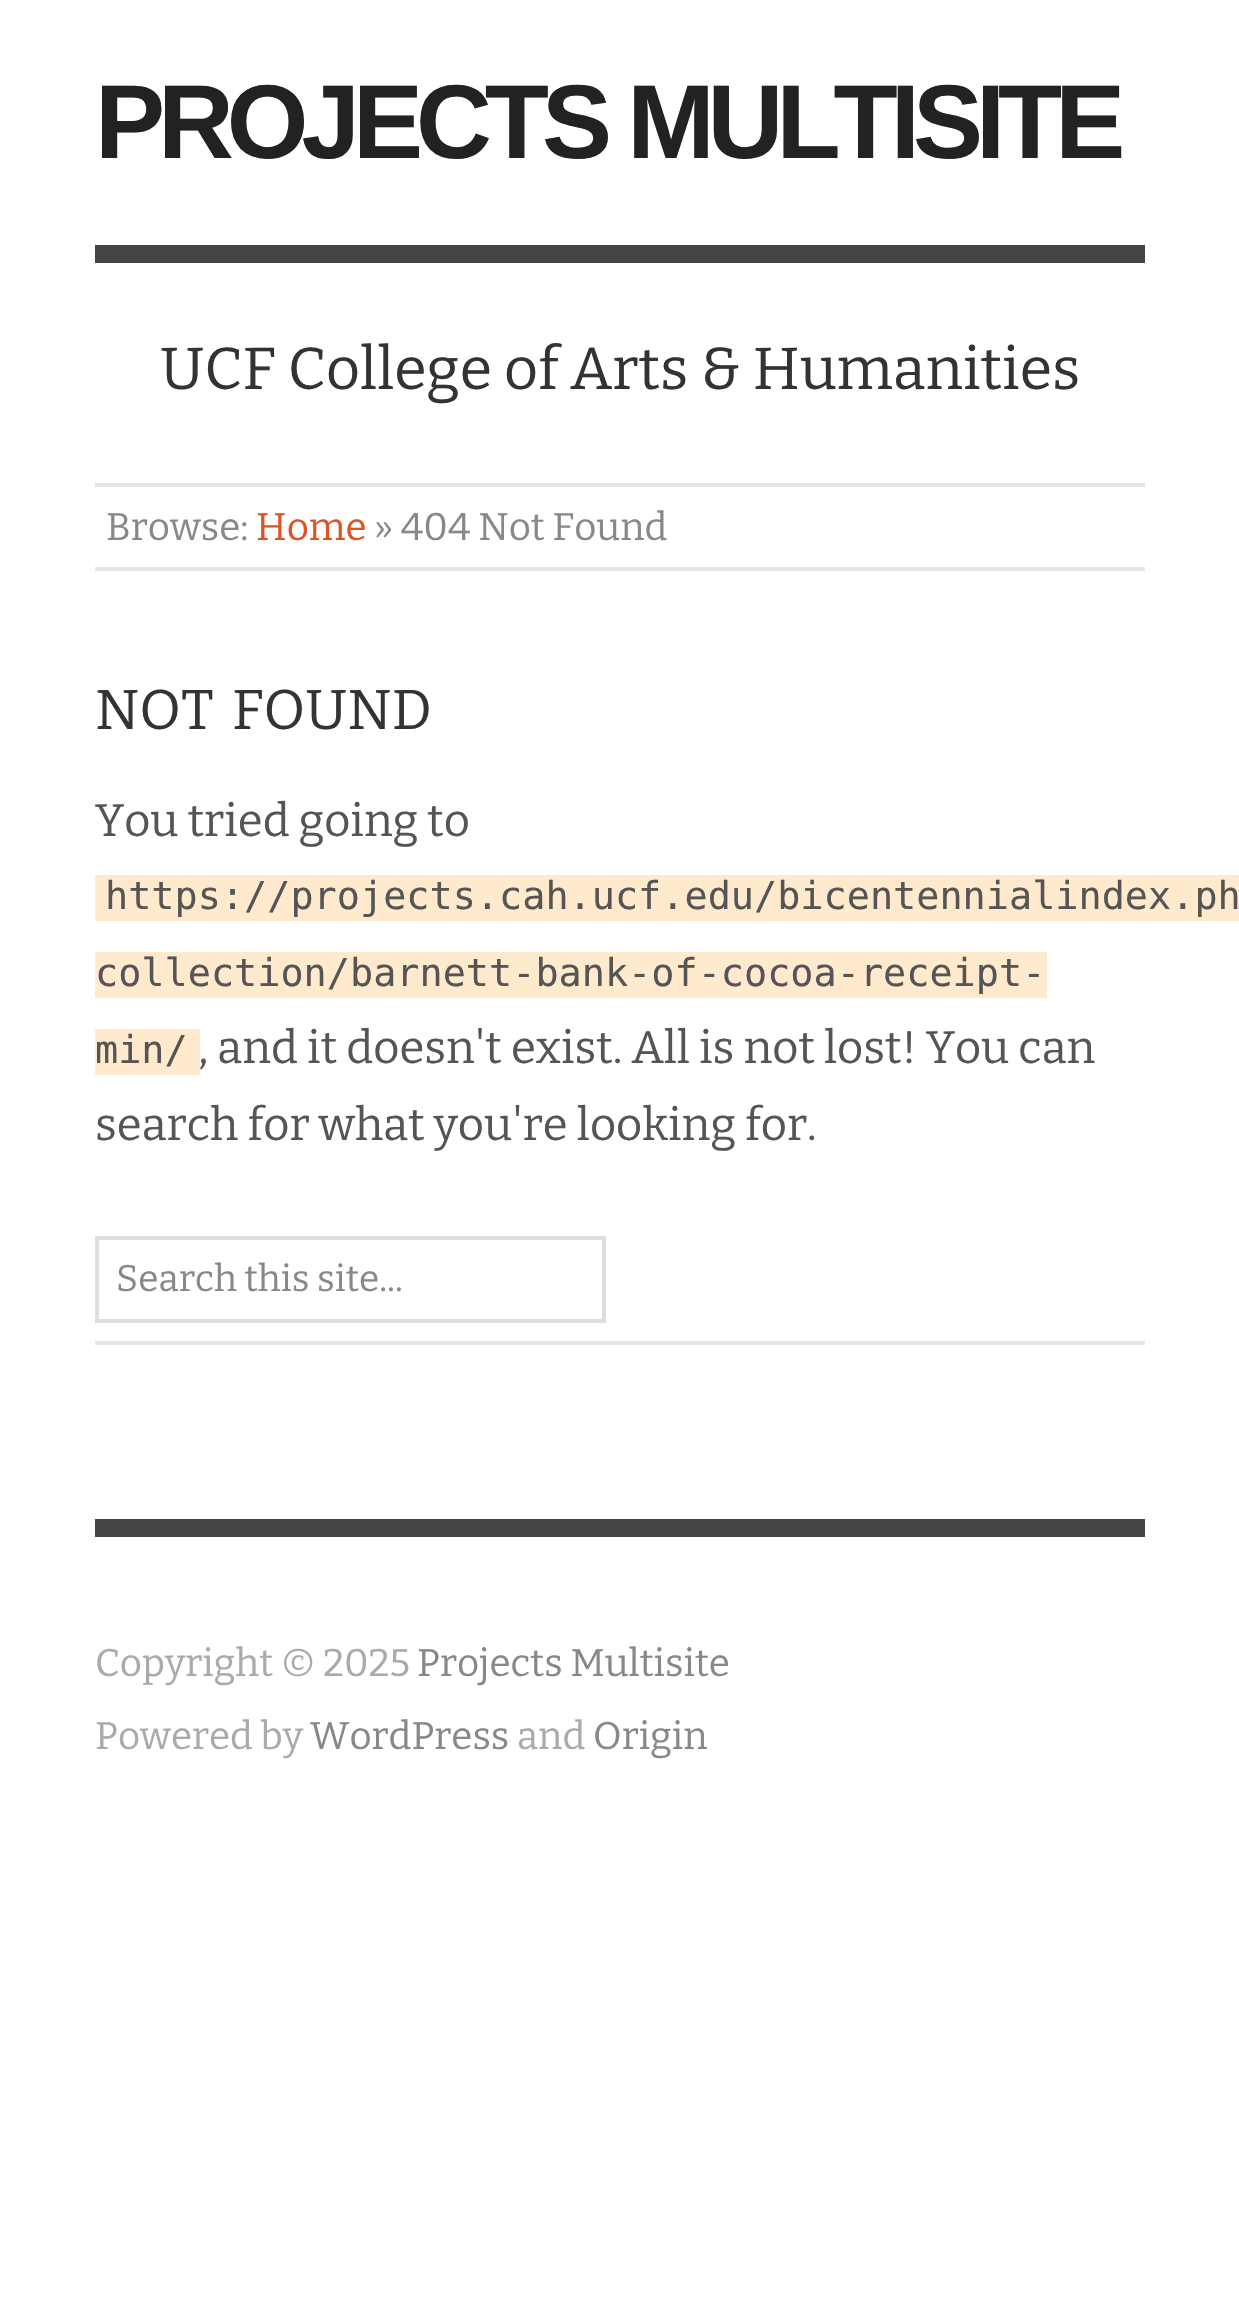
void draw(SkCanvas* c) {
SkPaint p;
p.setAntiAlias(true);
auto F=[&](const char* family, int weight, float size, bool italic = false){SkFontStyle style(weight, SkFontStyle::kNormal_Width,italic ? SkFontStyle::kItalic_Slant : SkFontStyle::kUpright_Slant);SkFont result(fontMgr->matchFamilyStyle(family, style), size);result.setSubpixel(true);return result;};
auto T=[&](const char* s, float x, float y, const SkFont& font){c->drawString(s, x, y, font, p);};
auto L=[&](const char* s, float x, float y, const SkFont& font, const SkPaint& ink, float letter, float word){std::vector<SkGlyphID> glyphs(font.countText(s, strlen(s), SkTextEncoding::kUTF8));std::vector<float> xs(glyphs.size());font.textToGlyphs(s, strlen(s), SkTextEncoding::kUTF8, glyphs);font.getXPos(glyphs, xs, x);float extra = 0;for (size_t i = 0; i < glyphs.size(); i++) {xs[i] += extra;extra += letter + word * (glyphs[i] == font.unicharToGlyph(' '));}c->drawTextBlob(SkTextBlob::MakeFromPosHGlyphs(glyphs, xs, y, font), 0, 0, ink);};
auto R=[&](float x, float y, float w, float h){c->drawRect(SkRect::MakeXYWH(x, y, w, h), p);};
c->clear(0xffffffff);
auto f1 = F("Liberation Sans",700,105);
p.setColor(0xff222222);
L("PROJECTS MULTISITE",95,158,f1,p,-7,0);
p.setColor(0xff444444);
R(95,245,1050,18);
auto f2 = F("Bitter",400,59.2);
p.setColor(0xff333333);
T("UCF College of Arts & Humanities",160,389,f2);
p.setColor(0xffe5e5e5);
R(95,483,1050,4);
R(95,567,1050,4);
auto f3 = F("Bitter",400,38.5);
p.setColor(0xff888888);
T("Browse:",106,540,f3);
p.setColor(0xffdd5424);
T("Home",256,540,f3);
p.setColor(0xff888888);
T("» 404 Not Found",374,540,f3);
p.setColor(0xffe5e5e5);
R(95,1341,1050,4);
auto f4 = F("Bitter",400,56);
p.setColor(0xff333333);
L("NOT FOUND",95,729,f4,p,0,7);
auto f5 = F("Bitter",400,45.5);
p.setColor(0xff555555);
T("You tried going to",95,836,f5);
p.setColor(0xffffeacd);
R(95,875,1144,46);
auto f6 = F("DejaVu Sans Mono",400,38.5);
p.setColor(0xff555555);
T("https://projects.cah.ucf.edu/bicentennialindex.ph",105,909,f6);
p.setColor(0xffffeacd);
R(95,952,952,46);
p.setColor(0xff555555);
T("collection/barnett-bank-of-cocoa-receipt-",95,986,f6);
p.setColor(0xffffeacd);
R(95,1029,105,46);
p.setColor(0xff555555);
T("min/",95,1063,f6);
T(", and it doesn't exist. All is not lost! You can",198,1063,f5);
T("search for what you're looking for.",95,1140,f5);
p.setStroke(true);
p.setStrokeWidth(4);
p.setColor(0xffdddddd);
c->drawRect(SkRect::MakeXYWH(97,1238,507,83),p);
auto f7 = F("Bitter",400,37);
p.setStroke(false);
p.setColor(0xff888888);
T("Search this site...",116,1291,f7);
p.setColor(0xff444444);
R(95,1519,1050,18);
p.setColor(0xffaaaaaa);
T("Copyright © 2025",95,1676,f3);
p.setColor(0xff888888);
T("Projects Multisite",417,1676,f3);
p.setColor(0xffaaaaaa);
T("Powered by",95,1749,f3);
p.setColor(0xff888888);
T("WordPress",310,1749,f3);
p.setColor(0xffaaaaaa);
T("and",517,1749,f3);
p.setColor(0xff888888);
T("Origin",593,1749,f3);
}
